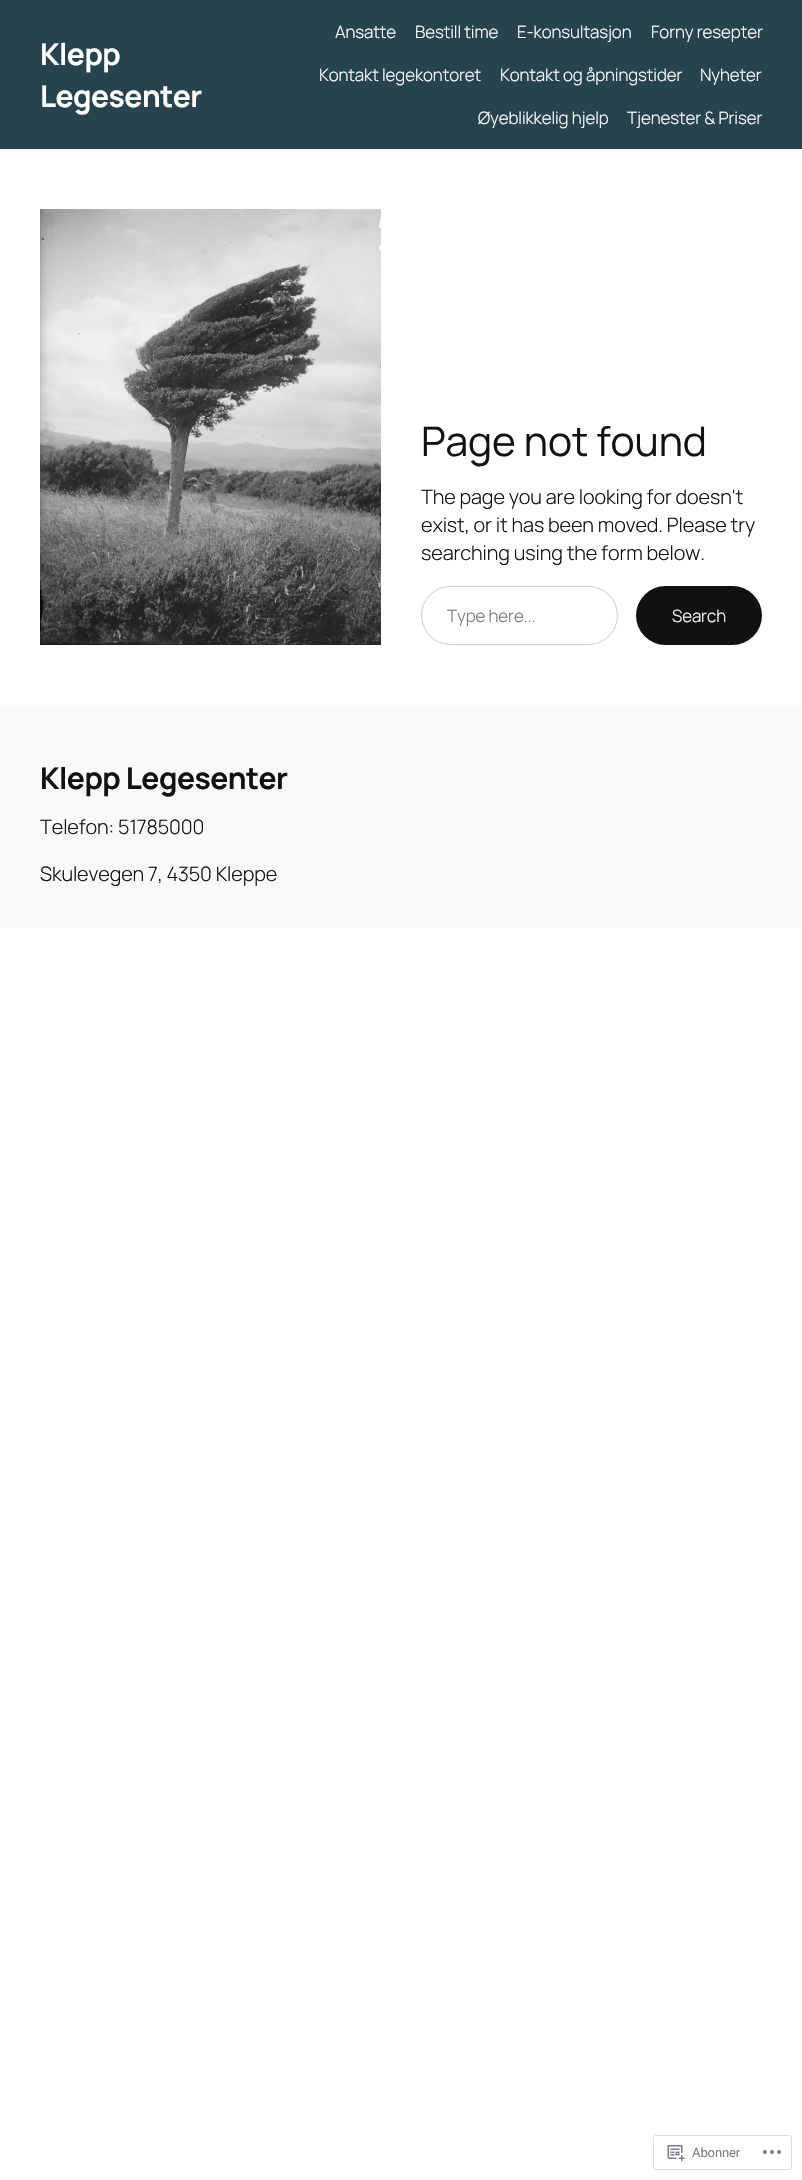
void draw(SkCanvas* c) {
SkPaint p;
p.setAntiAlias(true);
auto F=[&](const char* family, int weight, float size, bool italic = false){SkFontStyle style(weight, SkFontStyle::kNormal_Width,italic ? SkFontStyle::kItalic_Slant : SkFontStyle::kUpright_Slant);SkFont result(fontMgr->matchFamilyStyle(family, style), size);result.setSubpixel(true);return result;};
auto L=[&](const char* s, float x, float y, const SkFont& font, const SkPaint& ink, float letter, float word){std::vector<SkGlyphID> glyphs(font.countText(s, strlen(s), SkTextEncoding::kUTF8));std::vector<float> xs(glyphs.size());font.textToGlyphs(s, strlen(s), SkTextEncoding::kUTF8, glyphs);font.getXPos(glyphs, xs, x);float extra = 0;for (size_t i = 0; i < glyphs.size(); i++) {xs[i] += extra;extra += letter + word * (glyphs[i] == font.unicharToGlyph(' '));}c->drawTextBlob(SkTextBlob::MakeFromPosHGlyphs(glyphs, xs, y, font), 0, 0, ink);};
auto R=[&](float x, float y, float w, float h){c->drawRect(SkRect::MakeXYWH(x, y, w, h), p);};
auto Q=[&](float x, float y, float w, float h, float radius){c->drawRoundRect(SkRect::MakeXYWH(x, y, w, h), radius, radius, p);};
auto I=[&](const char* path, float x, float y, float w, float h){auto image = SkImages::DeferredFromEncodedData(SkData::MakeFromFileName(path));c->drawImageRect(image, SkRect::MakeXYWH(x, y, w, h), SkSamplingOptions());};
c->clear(0xffffffff);
p.setColor(0xff27444e);
R(0,0,802,149);
auto f1 = F("Manrope",700,30);
p.setColor(0xffffffff);
L("Klepp",40,65,f1,p,-.5,0);
L("Legesenter",40,107,f1,p,-.5,0);
auto f2 = F("Manrope",300,17);
L("Ansatte",335,38,f2,p,-.1,0);
L("Bestill time",415,38,f2,p,-.1,0);
L("E-konsultasjon",517,38,f2,p,-.1,0);
L("Forny resepter",651,38,f2,p,-.1,0);
L("Kontakt legekontoret",319,81,f2,p,-.1,0);
L("Kontakt og åpningstider",500,81,f2,p,-.1,0);
L("Nyheter",700,81,f2,p,-.1,0);
L("Øyeblikkelig hjelp",478,124,f2,p,-.1,0);
L("Tjenester & Priser",627,124,f2,p,-.1,0);
I("1.png",40,209,341,436);
auto f3 = F("Manrope",400,40.75);
p.setColor(0xff111111);
L("Page not found",421,456,f3,p,-.1,0);
auto f4 = F("Manrope",300,19.9);
L("The page you are looking for doesn't",421,504,f4,p,-.1,0);
L("exist, or it has been moved. Please try",421,532,f4,p,-.1,0);
L("searching using the form below.",421,560,f4,p,-.1,0);
p.setStroke(true);
p.setStrokeWidth(1);
p.setColor(0xffcccccc);
c->drawRoundRect(SkRect::MakeXYWH(421.5,586.5,196,58),29,29,p);
p.setStroke(false);
p.setColor(0xff757575);
L("Type here...",447,622,f2,p,-.1,0);
p.setColor(0xff111111);
Q(636,586,126,59,29.5);
p.setColor(0xffffffff);
L("Search",672,622,f2,p,-.1,0);
p.setColor(0xfff9f9f9);
R(0,705,802,223);
p.setColor(0xff111111);
L("Klepp Legesenter",40,789,f1,p,-.5,0);
L("Telefon: 51785000",40,834,f4,p,-.1,0);
L("Skulevegen 7, 4350 Kleppe",40,881,f4,p,-.1,0);
p.setStroke(true);
p.setColor(0xffdddddf);
c->drawRoundRect(SkRect::MakeXYWH(653.5,2135.5,138,34),2.5,2.5,p);
I("2.png",667,2145,18,17);
auto f5 = F("Roboto",400,13);
p.setStroke(false);
p.setColor(0xff7b7f85);
L("Abonner",692,2157,f5,p,-.1,0);
I("3.png",763,2150,18,4);
}
